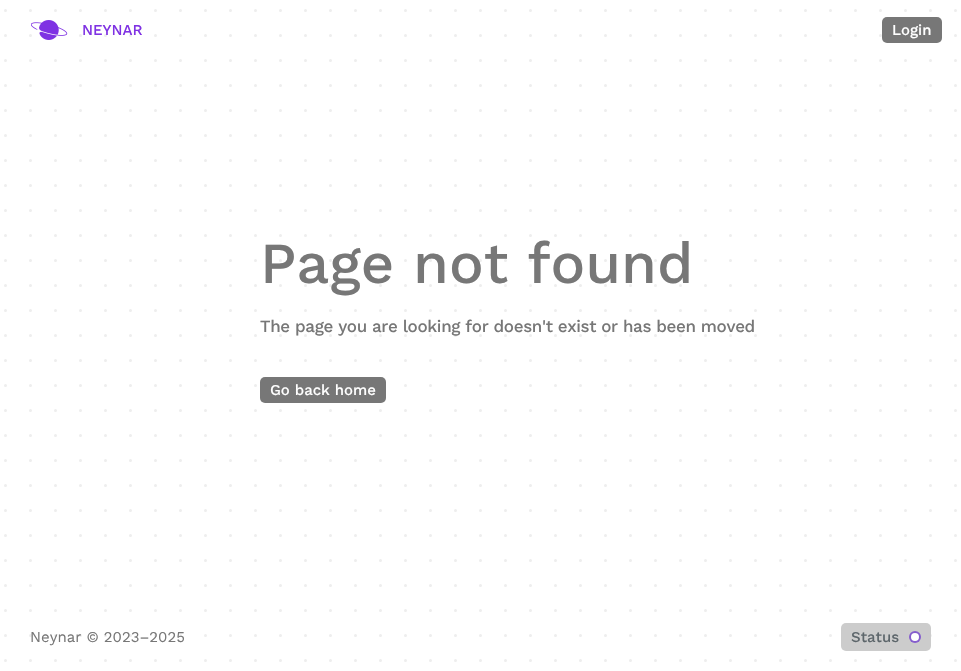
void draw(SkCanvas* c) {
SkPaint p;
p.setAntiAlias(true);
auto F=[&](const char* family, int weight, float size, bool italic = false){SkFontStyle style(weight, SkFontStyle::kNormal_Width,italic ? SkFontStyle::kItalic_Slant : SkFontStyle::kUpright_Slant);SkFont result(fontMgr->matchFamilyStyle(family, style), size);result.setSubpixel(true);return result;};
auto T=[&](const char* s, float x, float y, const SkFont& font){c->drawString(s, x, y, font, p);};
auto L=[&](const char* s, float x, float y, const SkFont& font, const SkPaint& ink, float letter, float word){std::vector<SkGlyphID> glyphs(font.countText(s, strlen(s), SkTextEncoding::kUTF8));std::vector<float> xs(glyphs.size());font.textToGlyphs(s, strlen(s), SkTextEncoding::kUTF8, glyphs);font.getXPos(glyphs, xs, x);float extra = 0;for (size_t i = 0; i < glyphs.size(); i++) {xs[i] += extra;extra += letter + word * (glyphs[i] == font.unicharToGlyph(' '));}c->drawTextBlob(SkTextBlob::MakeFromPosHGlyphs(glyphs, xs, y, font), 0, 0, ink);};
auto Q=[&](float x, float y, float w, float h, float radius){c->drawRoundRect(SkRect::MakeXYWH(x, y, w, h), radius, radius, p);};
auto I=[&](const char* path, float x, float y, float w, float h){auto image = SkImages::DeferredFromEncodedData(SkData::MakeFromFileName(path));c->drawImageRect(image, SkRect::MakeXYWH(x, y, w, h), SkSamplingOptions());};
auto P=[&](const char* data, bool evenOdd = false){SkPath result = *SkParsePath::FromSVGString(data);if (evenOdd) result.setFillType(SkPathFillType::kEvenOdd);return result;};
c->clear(0xffffffff);
p.setStroke(true);
p.setStrokeWidth(3);
p.setStrokeCap(SkPaint::kRound_Cap);
p.setColor(0xffeeeeee);
p.setPathEffect(SkDashPathEffect::Make({{0,25}}, 0));
c->drawPath(P("M5.5 35.5h950.2"),p);
p.setPathEffect(nullptr);
I("1.png",31,20,37,20);
auto f1 = F("Work Sans",500,15);
p.setStroke(false);
p.setColor(0xff7f32e3);
T("NEYNAR",82,35,f1);
p.setColor(0xff777777);
Q(882,17,60,26,5);
p.setColor(0xffffffff);
T("Login",892,35,f1);
p.setStroke(true);
p.setColor(0xffeeeeee);
p.setPathEffect(SkDashPathEffect::Make({{0,25}}, 0));
c->drawPath(P("M5.5 10.5h950.2"),p);
p.setPathEffect(nullptr);
p.setPathEffect(SkDashPathEffect::Make({{0,25}}, 0));
c->drawPath(P("M5.5 60.5h950.2"),p);
p.setPathEffect(nullptr);
p.setPathEffect(SkDashPathEffect::Make({{0,25}}, 0));
c->drawPath(P("M5.5 85.5h950.2"),p);
p.setPathEffect(nullptr);
p.setPathEffect(SkDashPathEffect::Make({{0,25}}, 0));
c->drawPath(P("M5.5 110.5h950.2"),p);
p.setPathEffect(nullptr);
p.setPathEffect(SkDashPathEffect::Make({{0,25}}, 0));
c->drawPath(P("M5.5 135.5h950.2"),p);
p.setPathEffect(nullptr);
p.setPathEffect(SkDashPathEffect::Make({{0,25}}, 0));
c->drawPath(P("M5.5 160.5h950.2"),p);
p.setPathEffect(nullptr);
p.setPathEffect(SkDashPathEffect::Make({{0,25}}, 0));
c->drawPath(P("M5.5 185.5h950.2"),p);
p.setPathEffect(nullptr);
p.setPathEffect(SkDashPathEffect::Make({{0,25}}, 0));
c->drawPath(P("M5.5 210.5h950.2"),p);
p.setPathEffect(nullptr);
p.setPathEffect(SkDashPathEffect::Make({{0,25}}, 0));
c->drawPath(P("M5.5 235.5h950.2"),p);
p.setPathEffect(nullptr);
p.setPathEffect(SkDashPathEffect::Make({{0,25}}, 0));
c->drawPath(P("M5.5 260.5h950.2"),p);
p.setPathEffect(nullptr);
p.setPathEffect(SkDashPathEffect::Make({{0,25}}, 0));
c->drawPath(P("M5.5 285.5h950.2"),p);
p.setPathEffect(nullptr);
p.setPathEffect(SkDashPathEffect::Make({{0,25}}, 0));
c->drawPath(P("M5.5 310.5h950.2"),p);
p.setPathEffect(nullptr);
p.setPathEffect(SkDashPathEffect::Make({{0,25}}, 0));
c->drawPath(P("M5.5 335.5h950.2"),p);
p.setPathEffect(nullptr);
p.setPathEffect(SkDashPathEffect::Make({{0,25}}, 0));
c->drawPath(P("M5.5 360.5h950.2"),p);
p.setPathEffect(nullptr);
p.setPathEffect(SkDashPathEffect::Make({{0,25}}, 0));
c->drawPath(P("M5.5 385.5h950.2"),p);
p.setPathEffect(nullptr);
p.setPathEffect(SkDashPathEffect::Make({{0,25}}, 0));
c->drawPath(P("M5.5 410.5h950.2"),p);
p.setPathEffect(nullptr);
p.setPathEffect(SkDashPathEffect::Make({{0,25}}, 0));
c->drawPath(P("M5.5 435.5h950.2"),p);
p.setPathEffect(nullptr);
p.setPathEffect(SkDashPathEffect::Make({{0,25}}, 0));
c->drawPath(P("M5.5 460.5h950.2"),p);
p.setPathEffect(nullptr);
p.setPathEffect(SkDashPathEffect::Make({{0,25}}, 0));
c->drawPath(P("M5.5 485.5h950.2"),p);
p.setPathEffect(nullptr);
p.setPathEffect(SkDashPathEffect::Make({{0,25}}, 0));
c->drawPath(P("M5.5 510.5h950.2"),p);
p.setPathEffect(nullptr);
p.setPathEffect(SkDashPathEffect::Make({{0,25}}, 0));
c->drawPath(P("M5.5 535.5h950.2"),p);
p.setPathEffect(nullptr);
p.setPathEffect(SkDashPathEffect::Make({{0,25}}, 0));
c->drawPath(P("M5.5 560.5h950.2"),p);
p.setPathEffect(nullptr);
p.setPathEffect(SkDashPathEffect::Make({{0,25}}, 0));
c->drawPath(P("M5.5 585.5h950.2"),p);
p.setPathEffect(nullptr);
p.setPathEffect(SkDashPathEffect::Make({{0,25}}, 0));
c->drawPath(P("M5.5 610.5h950.2"),p);
p.setPathEffect(nullptr);
p.setPathEffect(SkDashPathEffect::Make({{0,25}}, 0));
c->drawPath(P("M5.5 635.5h950.2"),p);
p.setPathEffect(nullptr);
p.setPathEffect(SkDashPathEffect::Make({{0,25}}, 0));
c->drawPath(P("M5.5 660.5h950.2"),p);
p.setPathEffect(nullptr);
auto f2 = F("Work Sans",500,58);
p.setStroke(false);
p.setColor(0xff777777);
T("Page not found",260,283,f2);
auto f3 = F("Work Sans",500,17);
L("The page you are looking for doesn't exist or has been moved",260,332,f3,p,-.35,0);
Q(260,377,126,26,5);
p.setColor(0xffffffff);
T("Go back home",270,395,f1);
auto f4 = F("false",400,15);
p.setColor(0xff777777);
T("Neynar © 2023–2025",30,642,f4);
p.setColor(0xffcccccc);
Q(841,623,90,28,5);
p.setColor(0xff5d666b);
T("Status",851,642,f1);
p.setColor(0xff855dcd);
c->drawCircle(915,637,6,p);
p.setColor(0xffffffff);
c->drawCircle(915,637,4,p);
}
